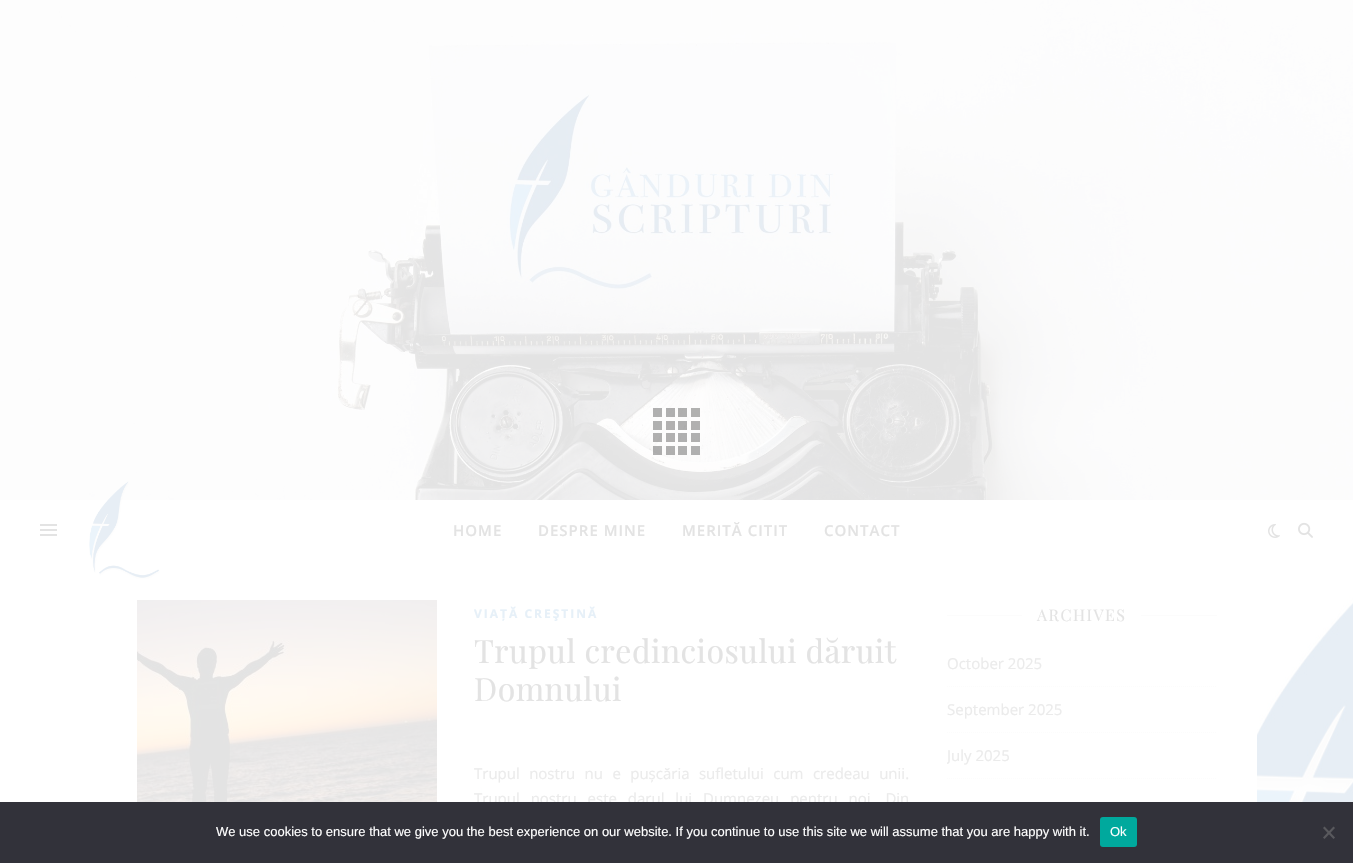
void draw(SkCanvas* c) {
SkPaint p;
p.setAntiAlias(true);
auto F=[&](const char* family, int weight, float size, bool italic = false){SkFontStyle style(weight, SkFontStyle::kNormal_Width,italic ? SkFontStyle::kItalic_Slant : SkFontStyle::kUpright_Slant);SkFont result(fontMgr->matchFamilyStyle(family, style), size);result.setSubpixel(true);return result;};
auto T=[&](const char* s, float x, float y, const SkFont& font){c->drawString(s, x, y, font, p);};
auto L=[&](const char* s, float x, float y, const SkFont& font, const SkPaint& ink, float letter, float word){std::vector<SkGlyphID> glyphs(font.countText(s, strlen(s), SkTextEncoding::kUTF8));std::vector<float> xs(glyphs.size());font.textToGlyphs(s, strlen(s), SkTextEncoding::kUTF8, glyphs);font.getXPos(glyphs, xs, x);float extra = 0;for (size_t i = 0; i < glyphs.size(); i++) {xs[i] += extra;extra += letter + word * (glyphs[i] == font.unicharToGlyph(' '));}c->drawTextBlob(SkTextBlob::MakeFromPosHGlyphs(glyphs, xs, y, font), 0, 0, ink);};
auto R=[&](float x, float y, float w, float h){c->drawRect(SkRect::MakeXYWH(x, y, w, h), p);};
auto Q=[&](float x, float y, float w, float h, float radius){c->drawRoundRect(SkRect::MakeXYWH(x, y, w, h), radius, radius, p);};
auto I=[&](const char* path, float x, float y, float w, float h){auto image = SkImages::DeferredFromEncodedData(SkData::MakeFromFileName(path));c->drawImageRect(image, SkRect::MakeXYWH(x, y, w, h), SkSamplingOptions());};
auto P=[&](const char* data, bool evenOdd = false){SkPath result = *SkParsePath::FromSVGString(data);if (evenOdd) result.setFillType(SkPathFillType::kEvenOdd);return result;};
c->clear(0xffffffff);
I("1.png",0,560,1353,242);
I("2.png",0,0,1353,500);
p.setColor(0x61333333);
R(653,408,9,9);
R(666,408,9,9);
R(678,408,9,9);
p.setColor(0xffb1b1b0);
R(691,408,9,9);
p.setColor(0xffb0b0b0);
R(653,421,9,9);
p.setColor(0xffb1b0b0);
R(666,421,9,9);
p.setColor(0x61333333);
R(678,421,9,9);
p.setColor(0xffb1b0b0);
R(691,421,9,9);
p.setColor(0x61333333);
R(653,433,9,9);
p.setColor(0xffb1b0b0);
R(666,433,9,9);
p.setColor(0x61333333);
R(678,433,9,9);
R(691,433,9,9);
R(653,446,9,9);
R(666,446,9,9);
p.setColor(0xffb0b0b0);
R(678,446,9,9);
R(691,446,9,9);
p.setColor(0xffe3e3e3);
R(40,524,17,2);
R(40,529,17,2);
R(40,534,17,2);
I("3.png",89,481,71,98);
auto f1 = F("Open Sans",600,15);
L("HOME",453,536,f1,p,1,0);
L("DESPRE MINE",538,536,f1,p,1,0);
L("MERITĂ CITIT",682,536,f1,p,1,0);
L("CONTACT",824,536,f1,p,1,0);
I("4.png",1268,524,12,14);
I("5.png",1298,522,15,16);
p.setColor(0xffffffff);
R(482,560,775,242);
I("6.png",137,600,300,202);
auto f2 = F("Open Sans",700,12);
p.setColor(0xffe6f0f8);
L("VIAȚĂ CREŞTINĂ",474,618,f2,p,2,0);
auto f3 = F("Playfair Display",400,32);
p.setColor(0xffe3e3e3);
L("Trupul credinciosului dăruit",474,663,f3,p,.5,0);
L("Domnului",474,701,f3,p,.5,0);
auto f4 = F("Open Sans",400,15);
p.setColor(0xffebebeb);
L("Trupul nostru nu e pușcăria sufletului cum credeau unii.",474,779,f4,p,0,5.5);
L("Trupul nostru este darul lui Dumnezeu pentru noi. Din",474,804,f4,p,0,7);
p.setColor(0xfffcfcfc);
R(947,615,75,1);
auto f5 = F("Playfair Display",400,16);
p.setColor(0xffe3e3e3);
L("ARCHIVES",1037,621,f5,p,1.5,0);
p.setColor(0xfffcfcfc);
R(1141,615,76,1);
p.setStroke(true);
p.setStrokeWidth(1);
p.setPathEffect(SkDashPathEffect::Make({{1,1}}, 0));
c->drawPath(P("M947 686.5h270"),p);
p.setPathEffect(nullptr);
p.setStroke(false);
p.setColor(0xffebebeb);
T("October 2025",947,669,f4);
p.setStroke(true);
p.setColor(0xfffcfcfc);
p.setPathEffect(SkDashPathEffect::Make({{1,1}}, 0));
c->drawPath(P("M947 732.5h270"),p);
p.setPathEffect(nullptr);
p.setStroke(false);
p.setColor(0xffebebeb);
T("September 2025",947,715,f4);
p.setStroke(true);
p.setColor(0xfffcfcfc);
p.setPathEffect(SkDashPathEffect::Make({{1,1}}, 0));
c->drawPath(P("M947 778.5h270"),p);
p.setPathEffect(nullptr);
c->save();
c->clipRect(SkRect::MakeXYWH(947,733,62,45));
p.setStroke(false);
p.setColor(0xffebebeb);
T("July 2025",947,761,f4);
c->restore();
p.setColor(0xff32323a);
R(0,802,1353,61);
auto f6 = F("Liberation Sans",400,13);
p.setColor(0xffffffff);
T("We use cookies to ensure that we give you the best experience on our website. If you continue to use this site we will assume that you are happy with it.",216,836,f6);
p.setColor(0xff00a99d);
Q(1100,817,37,30,3);
p.setColor(0xffffffff);
T("Ok",1110,836,f6);
p.setColor(0xff59595d);
c->drawPath(P("M1333.5 826.5l1.5 1.5l-10.5 11l-1.5-1.5z"),p);
c->drawPath(P("M1323 828l1.5-1.5l10.5 11l-1.5 1.5z"),p);
}
